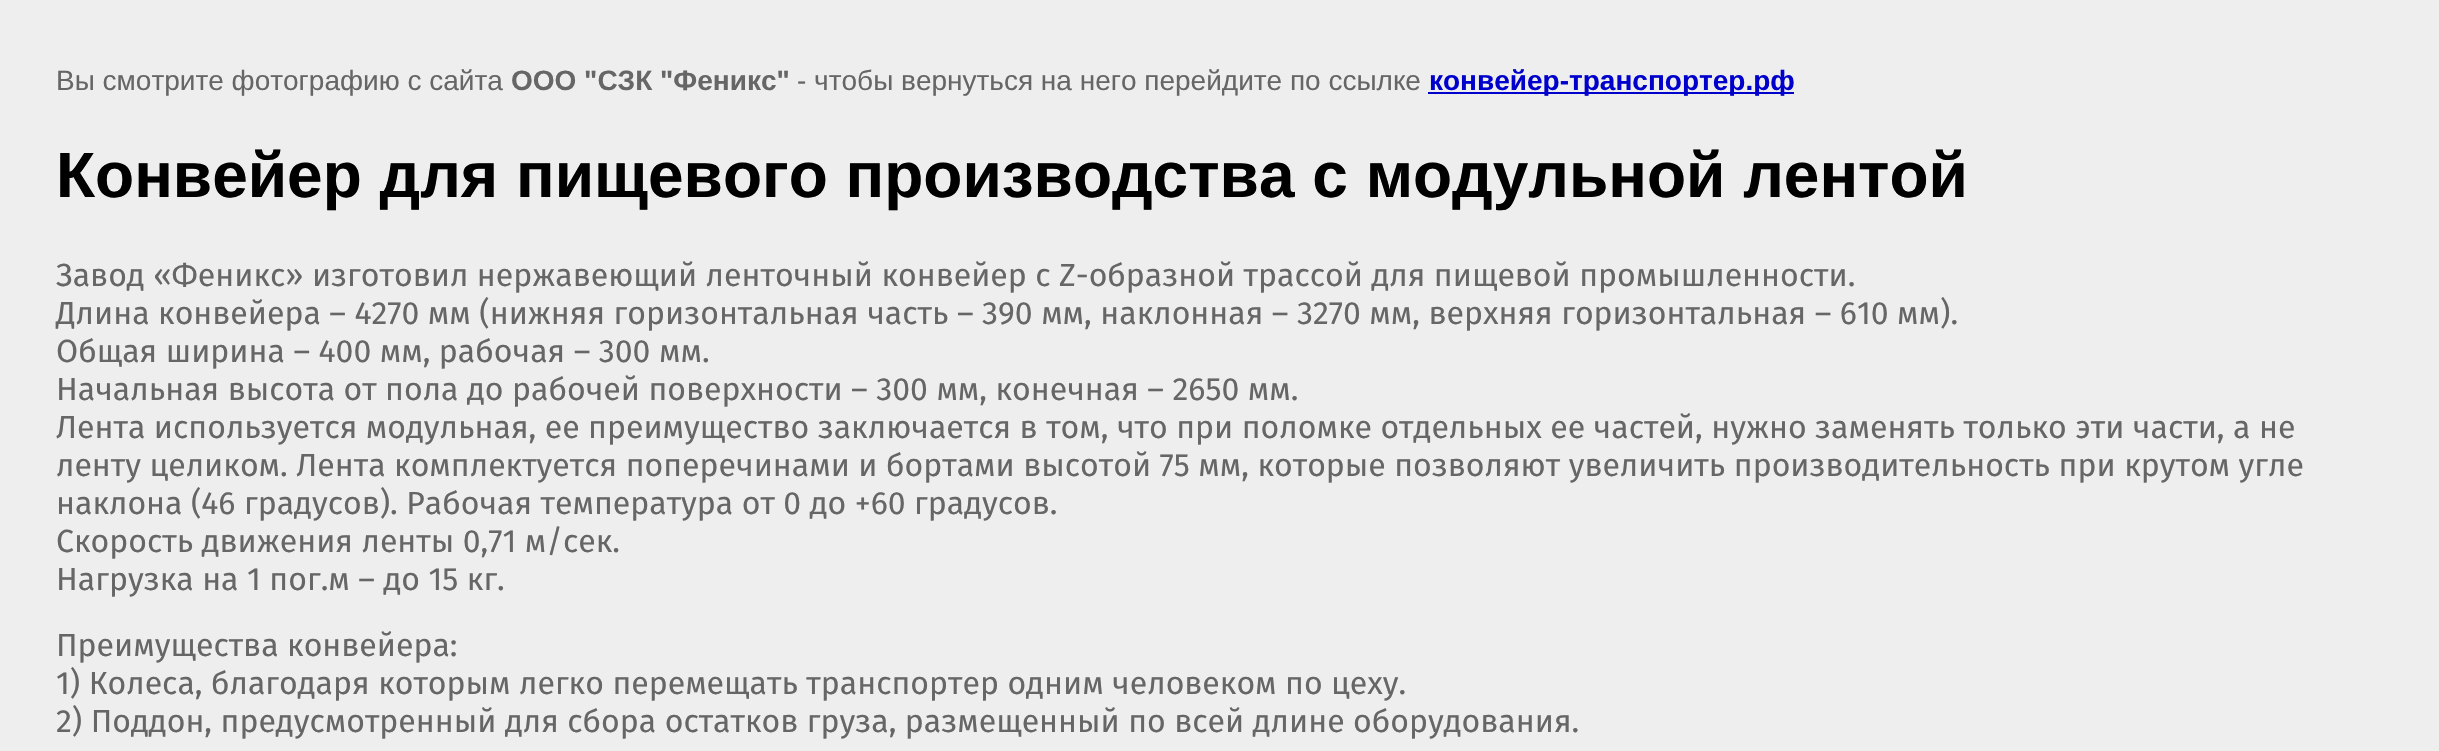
void draw(SkCanvas* c) {
SkPaint p;
p.setAntiAlias(true);
auto F=[&](const char* family, int weight, float size, bool italic = false){SkFontStyle style(weight, SkFontStyle::kNormal_Width,italic ? SkFontStyle::kItalic_Slant : SkFontStyle::kUpright_Slant);SkFont result(fontMgr->matchFamilyStyle(family, style), size);result.setSubpixel(true);return result;};
auto T=[&](const char* s, float x, float y, const SkFont& font){c->drawString(s, x, y, font, p);};
auto R=[&](float x, float y, float w, float h){c->drawRect(SkRect::MakeXYWH(x, y, w, h), p);};
c->clear(0xffeeeeee);
auto f1 = F("Liberation Sans",400,28);
p.setColor(0xff666666);
T("Вы смотрите фотографию с сайта",56,90,f1);
auto f2 = F("Liberation Sans",700,28);
T("ООО \"СЗК \"Феникс\"",511,90,f2);
T("- чтобы вернуться на него перейдите по ссылке",797,90,f1);
p.setColor(0xff0000cc);
R(1428,92,366,2);
T("конвейер-транспортер.рф",1429,90,f2);
auto f3 = F("Liberation Sans",700,64);
p.setColor(0xff000000);
T("Конвейер для пищевого производства с модульной лентой",56,197,f3);
auto f4 = F("Fira Sans",400,32);
p.setColor(0xff666666);
T("Завод «Феникс» изготовил нержавеющий ленточный конвейер с Z-образной трассой для пищевой промышленности.",56,286,f4);
T("Длина конвейера – 4270 мм (нижняя горизонтальная часть – 390 мм, наклонная – 3270 мм, верхняя горизонтальная – 610 мм).",56,324,f4);
T("Общая ширина – 400 мм, рабочая – 300 мм.",56,362,f4);
T("Начальная высота от пола до рабочей поверхности – 300 мм, конечная – 2650 мм.",56,400,f4);
T("Лента используется модульная, ее преимущество заключается в том, что при поломке отдельных ее частей, нужно заменять только эти части, а не",56,438,f4);
T("ленту целиком. Лента комплектуется поперечинами и бортами высотой 75 мм, которые позволяют увеличить производительность при крутом угле",56,476,f4);
T("наклона (46 градусов). Рабочая температура от 0 до +60 градусов.",56,514,f4);
T("Скорость движения ленты 0,71 м/сек.",56,552,f4);
T("Нагрузка на 1 пог.м – до 15 кг.",56,590,f4);
T("Преимущества конвейера:",56,656,f4);
T("1) Колеса, благодаря которым легко перемещать транспортер одним человеком по цеху.",56,694,f4);
T("2) Поддон, предусмотренный для сбора остатков груза, размещенный по всей длине оборудования.",56,732,f4);
}
